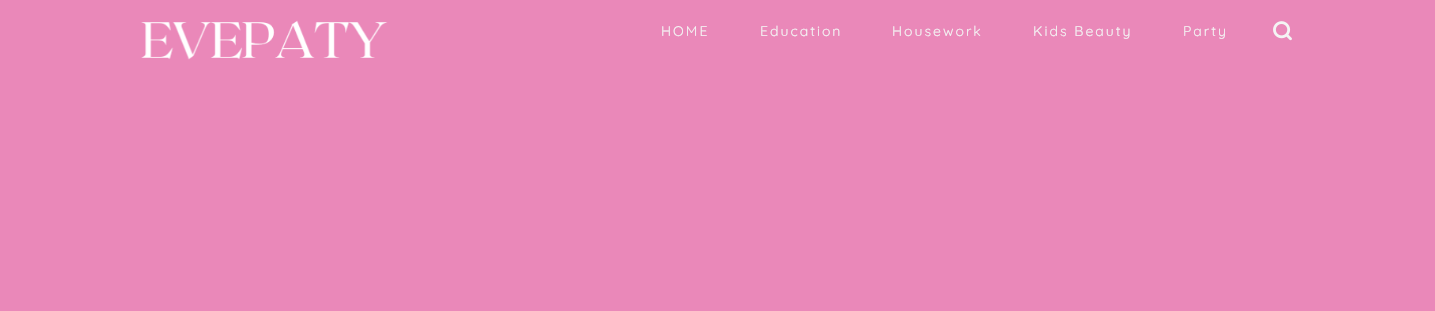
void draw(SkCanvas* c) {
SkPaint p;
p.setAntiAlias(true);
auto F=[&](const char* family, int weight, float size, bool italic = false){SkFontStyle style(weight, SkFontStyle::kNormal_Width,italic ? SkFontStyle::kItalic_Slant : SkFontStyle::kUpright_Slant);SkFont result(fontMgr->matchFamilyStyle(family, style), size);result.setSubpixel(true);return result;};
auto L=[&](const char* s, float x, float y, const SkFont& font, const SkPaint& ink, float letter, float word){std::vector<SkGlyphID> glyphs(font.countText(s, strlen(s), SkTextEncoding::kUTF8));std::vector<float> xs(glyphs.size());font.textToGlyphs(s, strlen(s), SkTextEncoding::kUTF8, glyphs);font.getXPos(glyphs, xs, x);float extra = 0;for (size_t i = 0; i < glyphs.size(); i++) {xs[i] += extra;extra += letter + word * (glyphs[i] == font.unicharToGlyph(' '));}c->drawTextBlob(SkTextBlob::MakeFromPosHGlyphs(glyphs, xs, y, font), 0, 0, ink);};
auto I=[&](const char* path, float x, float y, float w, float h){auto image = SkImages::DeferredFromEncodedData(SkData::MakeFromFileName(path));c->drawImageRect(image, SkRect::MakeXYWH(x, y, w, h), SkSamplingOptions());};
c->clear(0xffea88b9);
I("1.png",141,20,247,40);
auto f1 = F("Quicksand",300,14);
p.setColor(0xfff4f4f4);
L("HOME",661,36,f1,p,2,0);
L("Education",760,36,f1,p,2,0);
L("Housework",892,36,f1,p,2,0);
L("Kids Beauty",1033,36,f1,p,2,0);
L("Party",1183,36,f1,p,2,0);
I("2.png",1273,21,19,20);
}
